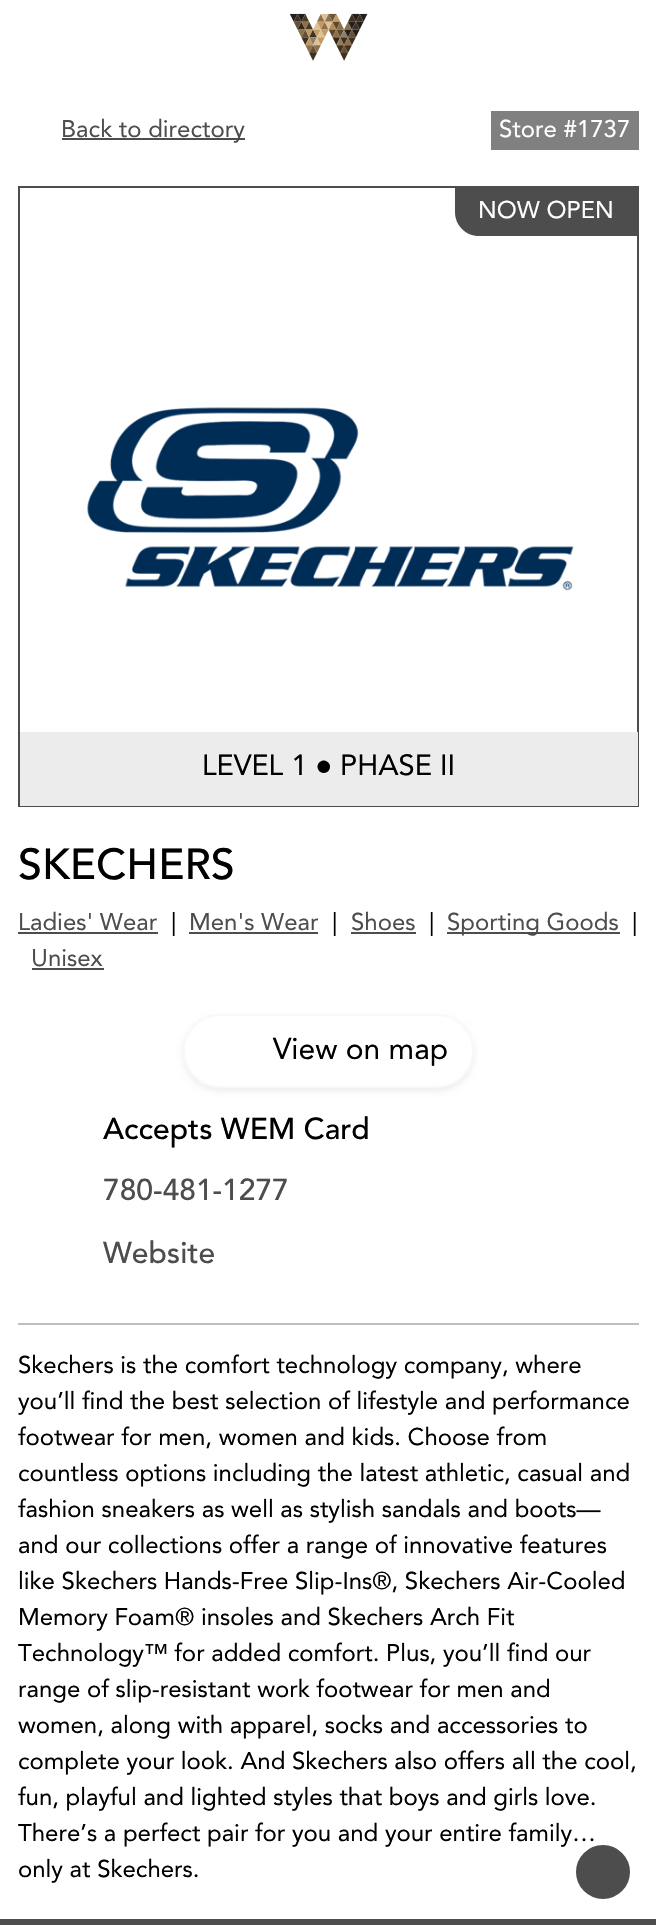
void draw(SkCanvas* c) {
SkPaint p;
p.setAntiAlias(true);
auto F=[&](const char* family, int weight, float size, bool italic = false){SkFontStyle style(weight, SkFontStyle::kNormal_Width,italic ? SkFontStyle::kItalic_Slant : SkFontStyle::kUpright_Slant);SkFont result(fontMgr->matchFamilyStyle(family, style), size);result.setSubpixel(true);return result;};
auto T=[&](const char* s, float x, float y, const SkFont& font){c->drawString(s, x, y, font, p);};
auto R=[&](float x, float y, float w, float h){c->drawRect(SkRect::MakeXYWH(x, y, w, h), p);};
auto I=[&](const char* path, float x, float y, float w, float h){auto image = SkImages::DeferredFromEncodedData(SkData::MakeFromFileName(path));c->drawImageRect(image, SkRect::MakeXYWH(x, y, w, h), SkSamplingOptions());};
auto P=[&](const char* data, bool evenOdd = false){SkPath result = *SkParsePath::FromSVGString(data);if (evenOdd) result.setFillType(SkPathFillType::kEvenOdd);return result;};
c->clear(0xffffffff);
I("1.png",290,13,78,48);
p.setColor(0xff4d4d4d);
R(62,138,183,2);
auto f1 = F("Avenir",400,24);
T("Back to directory",61,137,f1);
p.setColor(0xff808080);
R(491,111,148,39);
p.setColor(0xffffffff);
T("Store #1737",499,137,f1);
p.setStroke(true);
p.setStrokeWidth(2);
p.setColor(0xff4d4d4d);
c->drawRect(SkRect::MakeXYWH(19,187,619,619),p);
p.setStroke(false);
c->drawPath(P("M455 188h183v48h-159c-13.5 0-24-10.5-24-24z"),p);
p.setColor(0xffffffff);
T("NOW OPEN",478,218,f1);
I("2.png",87,407,487,184);
p.setColor(0xffececec);
R(20,732,618,74);
auto f2 = F("Avenir",400,29);
p.setColor(0xff000000);
T("LEVEL 1",202,775,f2);
auto f3 = F("Liberation Sans",400,29);
T("●",315,775,f3);
T("PHASE II",340,775,f2);
auto f4 = F("Avenir",500,43);
T("SKECHERS",18,879,f4);
p.setColor(0xff4d4d4d);
T("Ladies' Wear",18,930,f1);
R(18,932,140,2);
p.setColor(0xff000000);
T("|",171,930,f1);
p.setColor(0xff4d4d4d);
T("Men's Wear",189,930,f1);
R(189,932,129,2);
p.setColor(0xff000000);
T("|",332,930,f1);
p.setColor(0xff4d4d4d);
T("Shoes",351,930,f1);
R(351,932,65,2);
p.setColor(0xff000000);
T("|",429,930,f1);
p.setColor(0xff4d4d4d);
R(447,932,173,2);
T("Sporting Goods",447,930,f1);
p.setColor(0xff000000);
T("|",632,930,f1);
p.setColor(0xff4d4d4d);
T("Unisex",31,966,f1);
R(32,968,72,2);
p.setColor(0x12000000);
p.setMaskFilter(SkMaskFilter::MakeBlur(kNormal_SkBlurStyle, 3));
c->drawRoundRect(SkRect::MakeXYWH(183,1017,291,74),37,37,p);
p.setMaskFilter(nullptr);
p.setColor(0xffffffff);
c->drawRoundRect(SkRect::MakeXYWH(184,1015,289,72),36,36,p);
p.setStroke(true);
p.setColor(0xfff8f9fa);
c->drawRoundRect(SkRect::MakeXYWH(184,1015,289,72),36,36,p);
auto f5 = F("Avenir",400,30);
p.setStroke(false);
p.setColor(0xff000000);
T("View on map",273,1059,f5);
auto f6 = F("Avenir",500,30);
T("Accepts WEM Card",103,1139,f6);
p.setColor(0xff4d4d4d);
T("780-481-1277",103,1200,f6);
T("Website",103,1263,f6);
p.setColor(0xffbfbfbf);
R(18,1323,621,2);
p.setColor(0xff000000);
T("Skechers is the comfort technology company, where",18,1373,f1);
T("you’ll find the best selection of lifestyle and performance",18,1409,f1);
T("footwear for men, women and kids. Choose from",18,1445,f1);
T("countless options including the latest athletic, casual and",18,1481,f1);
T("fashion sneakers as well as stylish sandals and boots—",18,1517,f1);
T("and our collections offer a range of innovative features",18,1553,f1);
T("like Skechers Hands-Free Slip-Ins®, Skechers Air-Cooled",18,1589,f1);
T("Memory Foam® insoles and Skechers Arch Fit",18,1625,f1);
T("Technology™ for added comfort. Plus, you’ll find our",18,1661,f1);
T("range of slip-resistant work footwear for men and",18,1697,f1);
T("women, along with apparel, socks and accessories to",18,1733,f1);
T("complete your look. And Skechers also offers all the cool,",18,1769,f1);
T("fun, playful and lighted styles that boys and girls love.",18,1805,f1);
T("There’s a perfect pair for you and your entire family…",18,1841,f1);
T("only at Skechers.",18,1877,f1);
p.setColor(0xff4d4d4d);
c->drawCircle(603,1872,28.5,p);
p.setStroke(true);
p.setStrokeWidth(3);
p.setColor(0xffffffff);
c->drawCircle(603,1872,28.5,p);
p.setStroke(false);
p.setColor(0xff4d4d4d);
R(0,1919,656,6);
}
